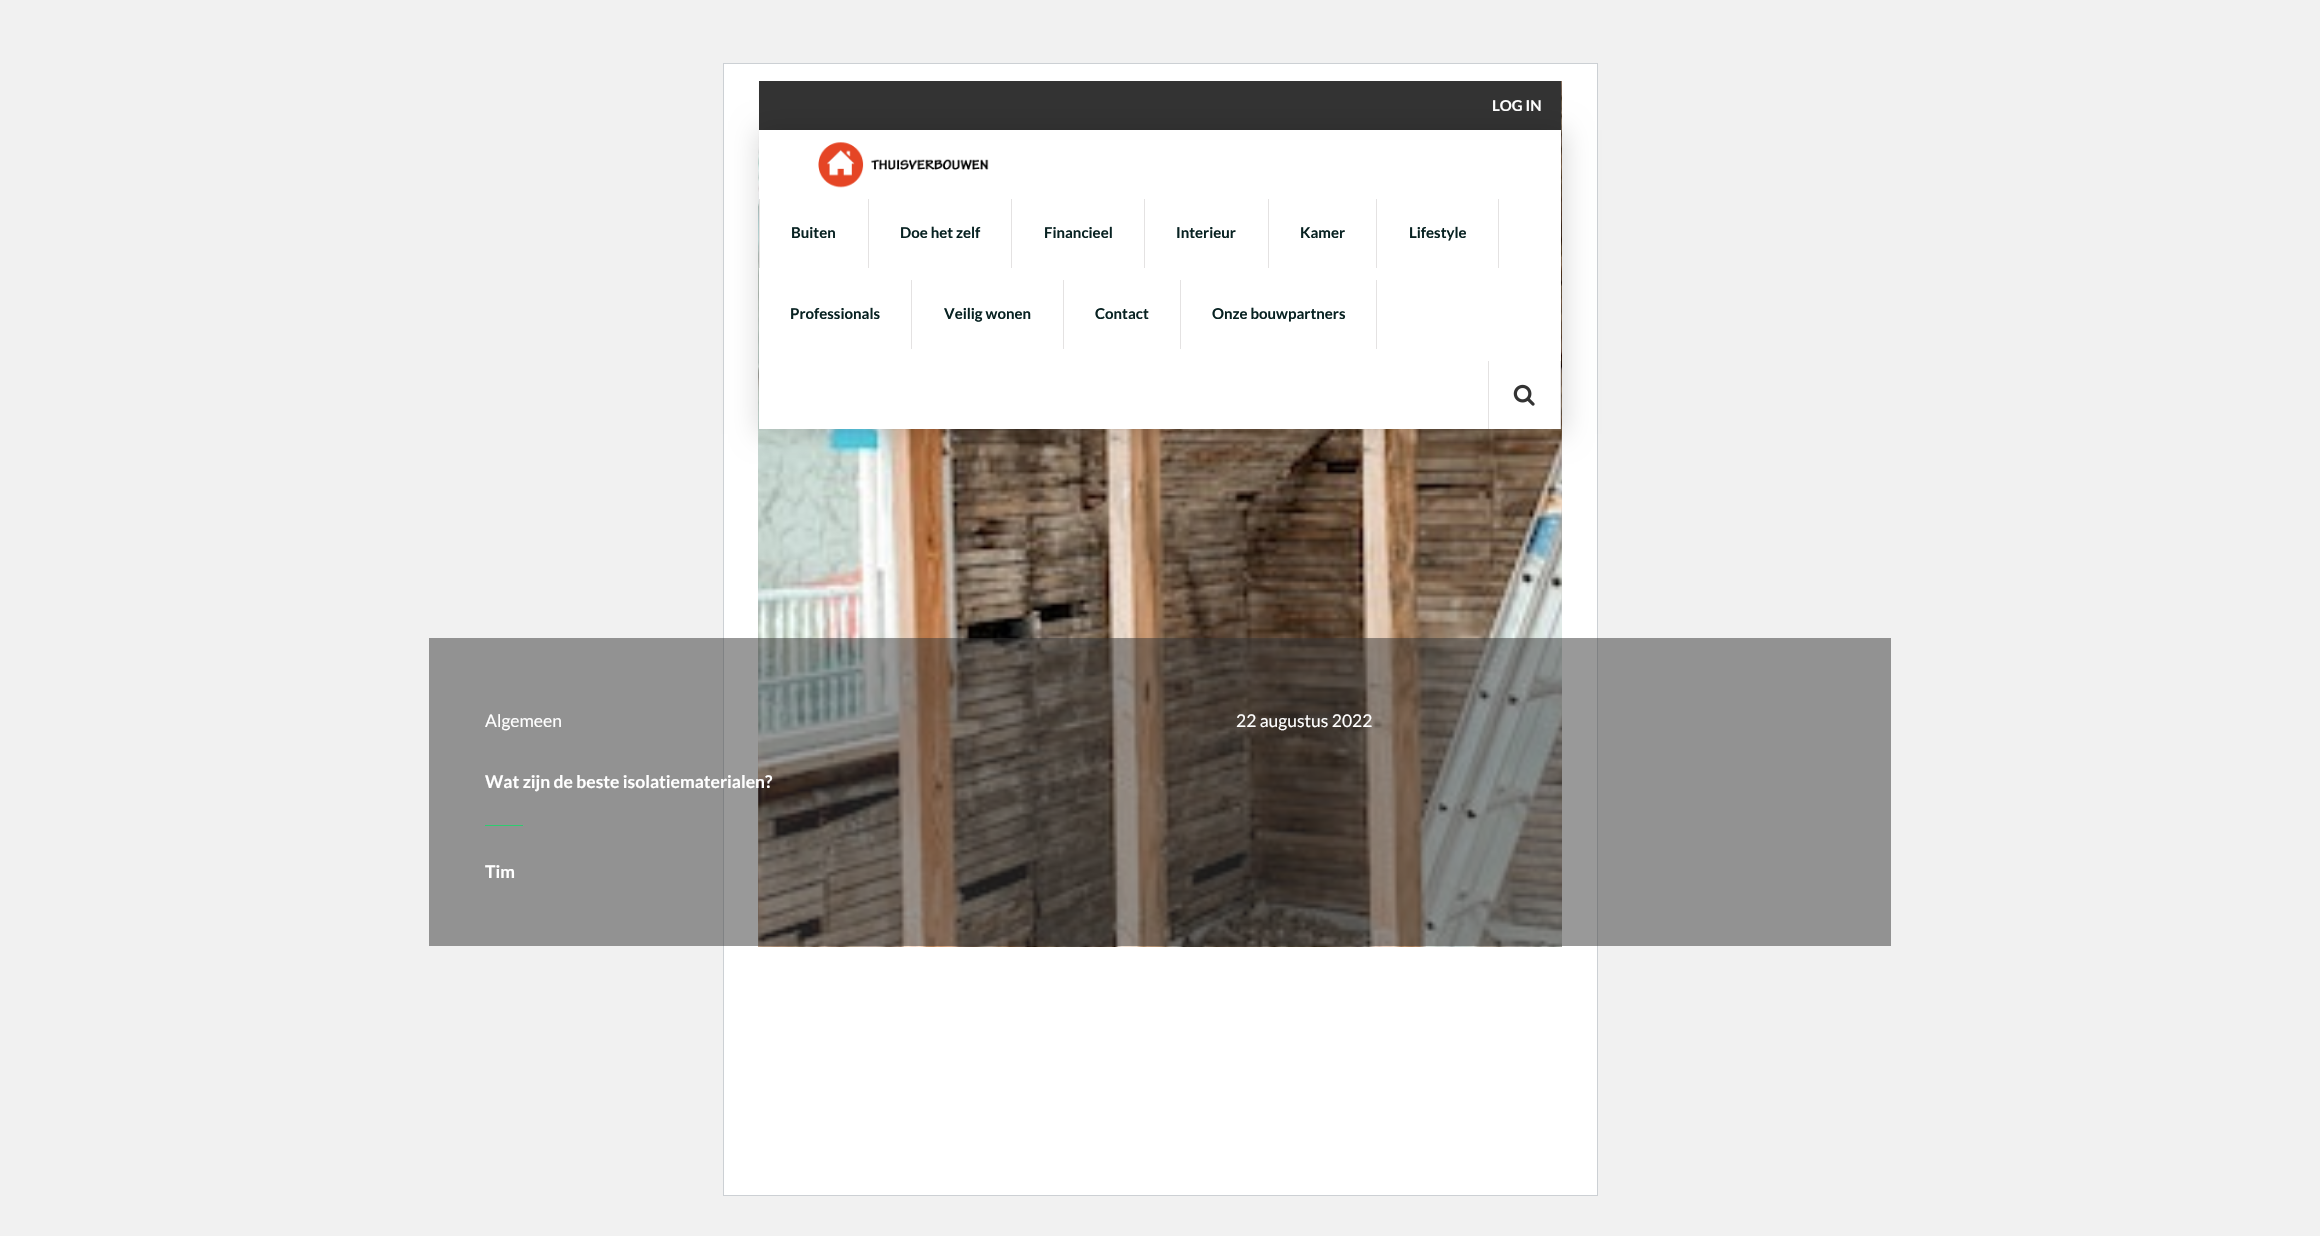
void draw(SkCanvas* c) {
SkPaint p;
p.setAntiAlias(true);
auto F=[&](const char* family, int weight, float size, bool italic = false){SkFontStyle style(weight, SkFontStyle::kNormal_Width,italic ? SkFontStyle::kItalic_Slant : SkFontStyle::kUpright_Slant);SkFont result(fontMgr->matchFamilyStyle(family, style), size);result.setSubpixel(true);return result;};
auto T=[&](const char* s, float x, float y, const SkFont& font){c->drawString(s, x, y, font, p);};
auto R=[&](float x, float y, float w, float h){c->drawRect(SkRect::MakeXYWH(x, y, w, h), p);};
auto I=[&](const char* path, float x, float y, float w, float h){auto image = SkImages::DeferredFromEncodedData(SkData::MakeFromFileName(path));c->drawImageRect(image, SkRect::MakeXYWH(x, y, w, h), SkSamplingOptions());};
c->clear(0xfff1f1f1);
p.setColor(0xffffffff);
c->drawRect(SkRect::MakeXYWH(723.5,63.5,874,1132),p);
p.setStroke(true);
p.setStrokeWidth(1);
p.setColor(0xffccd0d4);
c->drawRect(SkRect::MakeXYWH(723.5,63.5,874,1132),p);
I("1.png",758,81,804,866);
p.setStroke(false);
p.setColor(0xff333333);
R(759,81,802,49);
auto f1 = F("Lato",700,15);
p.setColor(0xffffffff);
T("LOG IN",1492,111,f1);
p.setColor(0x26000000);
p.setMaskFilter(SkMaskFilter::MakeBlur(kNormal_SkBlurStyle, 12.5));
c->drawRect(SkRect::MakeXYWH(758,130,807,304),p);
p.setMaskFilter(nullptr);
p.setColor(0xffffffff);
R(759,130,802,299);
I("2.png",818,142,171,46);
p.setColor(0xffe4e2e2);
R(868,199,1,69);
R(759,199,1,69);
p.setColor(0xff082222);
T("Buiten",791,238,f1);
p.setColor(0xffe4e2e2);
R(1011,199,1,69);
p.setColor(0xff082222);
T("Doe het zelf",900,238,f1);
p.setColor(0xffe4e2e2);
R(1144,199,1,69);
p.setColor(0xff082222);
T("Financieel",1044,238,f1);
p.setColor(0xffe4e2e2);
R(1268,199,1,69);
p.setColor(0xff082222);
T("Interieur",1176,238,f1);
p.setColor(0xffe4e2e2);
R(1376,199,1,69);
p.setColor(0xff082222);
T("Kamer",1300,238,f1);
p.setColor(0xffe4e2e2);
R(1498,199,1,69);
p.setColor(0xff082222);
T("Lifestyle",1409,238,f1);
p.setColor(0xffe4e2e2);
R(911,280,1,69);
p.setColor(0xff082222);
T("Professionals",790,319,f1);
p.setColor(0xffe4e2e2);
R(1063,280,1,69);
p.setColor(0xff082222);
T("Veilig wonen",944,319,f1);
p.setColor(0xffe4e2e2);
R(1180,280,1,69);
p.setColor(0xff082222);
T("Contact",1095,319,f1);
p.setColor(0xffe4e2e2);
R(1376,280,1,69);
p.setColor(0xff082222);
T("Onze bouwpartners",1212,319,f1);
p.setColor(0xffe4e2e2);
R(1560,361,1,68);
R(1488,361,1,68);
I("3.png",1513,384,22,22);
p.setColor(0x80333333);
R(429,638,1462,308);
auto f2 = F("Lato",400,17.5);
p.setColor(0xffffffff);
T("Algemeen",485,727,f2);
T("22 augustus 2022",1236,727,f2);
auto f3 = F("Lato",700,17.5);
T("Wat zijn de beste isolatiematerialen?",485,788,f3);
p.setColor(0xff2dcc70);
R(485,825,38,1);
p.setColor(0xffffffff);
T("Tim",485,878,f3);
}
